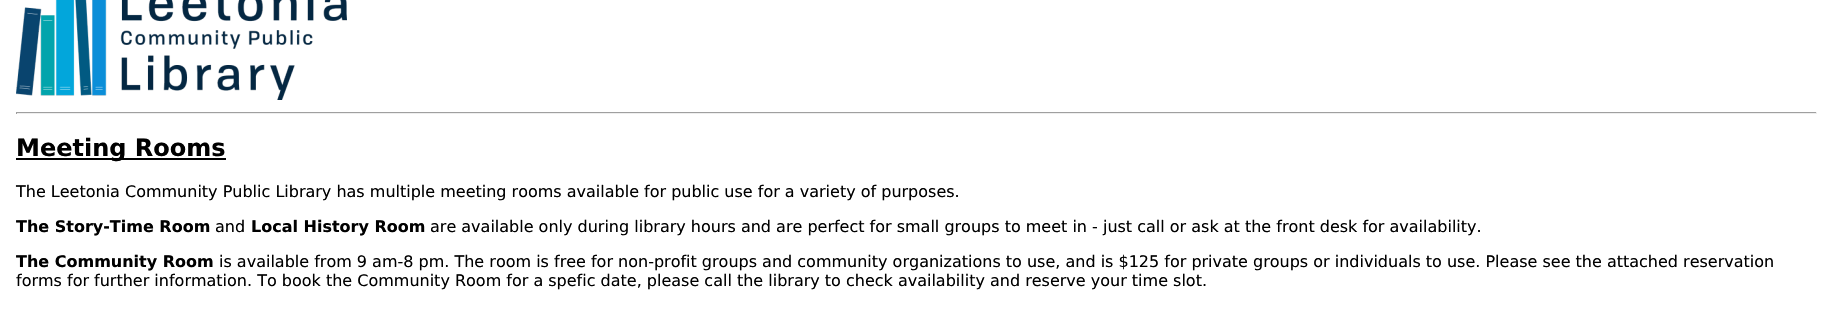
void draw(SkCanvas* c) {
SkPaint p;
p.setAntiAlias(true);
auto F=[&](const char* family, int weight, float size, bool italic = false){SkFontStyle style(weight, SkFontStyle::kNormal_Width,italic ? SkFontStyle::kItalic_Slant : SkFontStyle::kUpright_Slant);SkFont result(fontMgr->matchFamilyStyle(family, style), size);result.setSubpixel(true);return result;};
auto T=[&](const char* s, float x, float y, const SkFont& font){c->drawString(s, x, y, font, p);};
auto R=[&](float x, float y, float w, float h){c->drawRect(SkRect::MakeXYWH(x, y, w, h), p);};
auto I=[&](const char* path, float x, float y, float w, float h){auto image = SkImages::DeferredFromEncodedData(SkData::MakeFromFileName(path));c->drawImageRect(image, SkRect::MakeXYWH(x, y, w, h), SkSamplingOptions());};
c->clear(0xffffffff);
I("1.png",16,0,331,100);
p.setColor(0xff9f9f9f);
R(16,112,1801,1);
p.setColor(0xffeeeeee);
R(1816,112,1,2);
R(16,113,1801,1);
p.setColor(0xff9f9f9f);
R(16,112,1,2);
p.setColor(0xff000000);
R(16,158,210,2);
auto f1 = F("DejaVu Sans",700,24);
T("Meeting Rooms",16,156,f1);
auto f2 = F("DejaVu Sans",400,16);
T("The Leetonia Community Public Library has multiple meeting rooms available for public use for a variety of purposes.",16,197,f2);
auto f3 = F("DejaVu Sans",700,16);
T("The Story-Time Room",16,232,f3);
T("and",215,232,f2);
T("Local History Room",251,232,f3);
T("are available only during library hours and are perfect for small groups to meet in - just call or ask at the front desk for availability.",430,232,f2);
T("The Community Room",16,267,f3);
T("is available from 9 am-8 pm. The room is free for non-profit groups and community organizations to use, and is $125 for private groups or individuals to use. Please see the attached reservation",219,267,f2);
T("forms for further information. To book the Community Room for a spefic date, please call the library to check availability and reserve your time slot.",16,286,f2);
}
